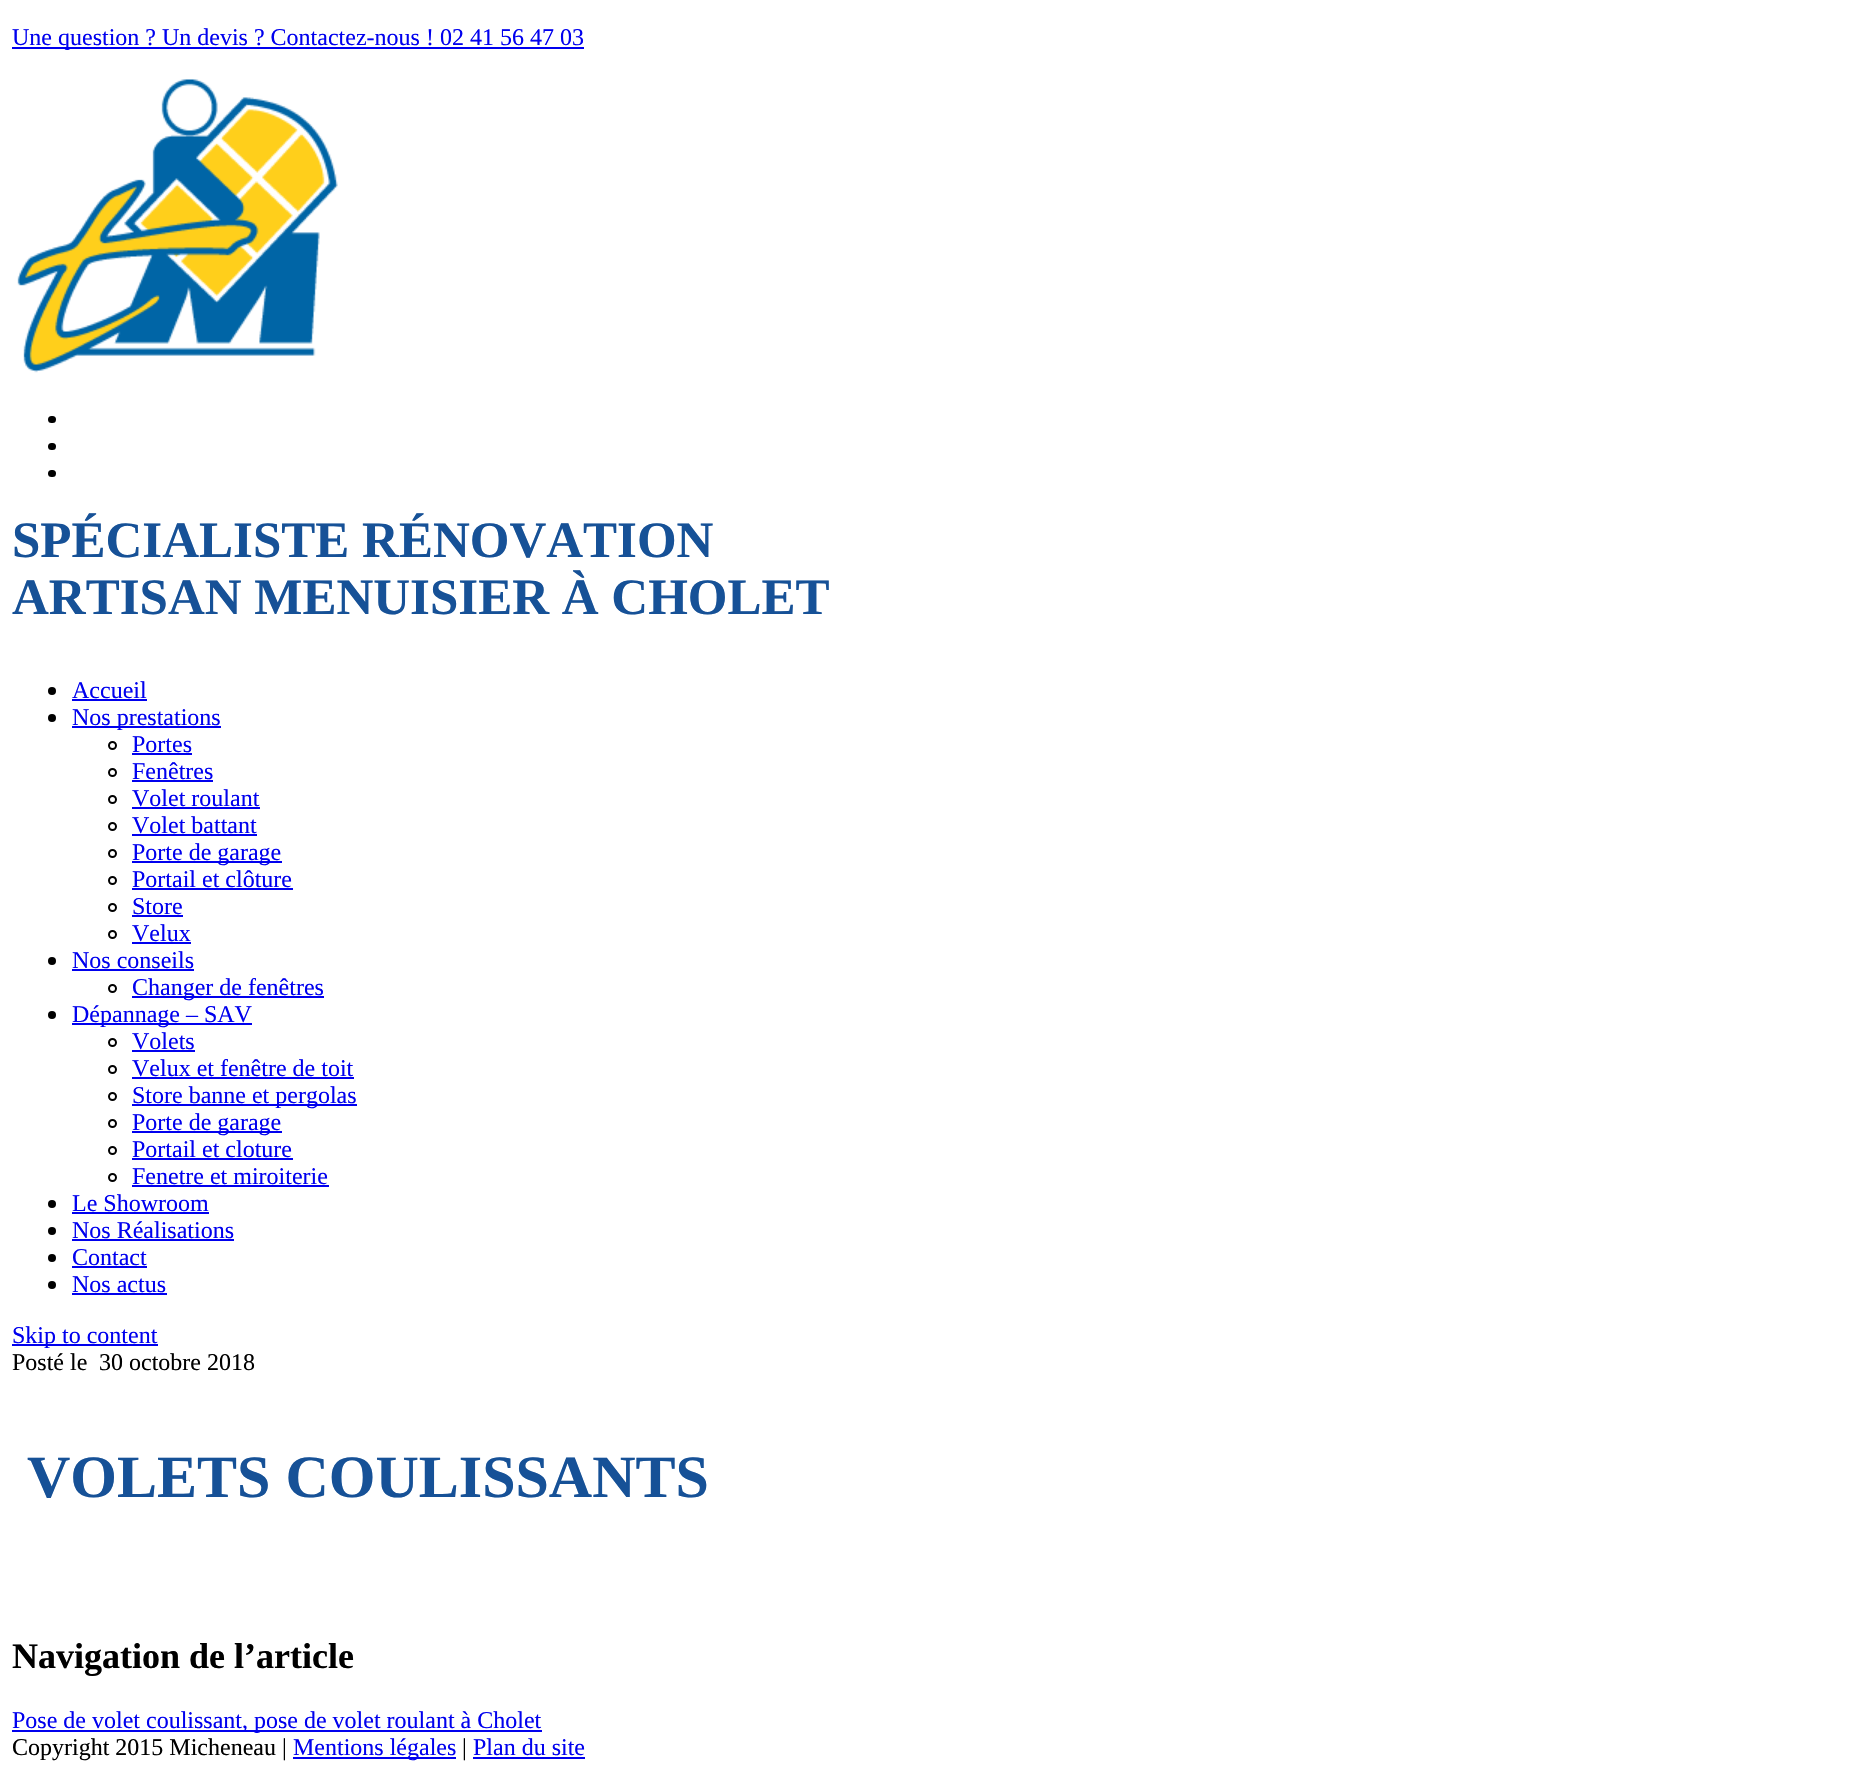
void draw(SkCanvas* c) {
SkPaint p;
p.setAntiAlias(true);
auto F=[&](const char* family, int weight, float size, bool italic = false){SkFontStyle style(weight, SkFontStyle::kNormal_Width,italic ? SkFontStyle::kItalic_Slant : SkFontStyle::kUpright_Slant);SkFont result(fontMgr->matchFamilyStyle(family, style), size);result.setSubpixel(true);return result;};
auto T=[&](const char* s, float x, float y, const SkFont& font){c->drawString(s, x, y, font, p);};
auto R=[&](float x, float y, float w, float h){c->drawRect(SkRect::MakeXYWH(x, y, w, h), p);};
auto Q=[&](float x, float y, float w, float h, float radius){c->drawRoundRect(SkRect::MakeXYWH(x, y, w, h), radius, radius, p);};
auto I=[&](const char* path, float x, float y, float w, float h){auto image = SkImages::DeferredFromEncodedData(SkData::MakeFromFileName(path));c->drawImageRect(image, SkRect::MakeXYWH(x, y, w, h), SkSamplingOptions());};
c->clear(0xffffffff);
p.setColor(0xff0000ee);
R(12,47,572,2);
auto f1 = F("Liberation Serif",400,24);
T("Une question ? Un devis ? Contactez-nous ! 02 41 56 47 03",12,45,f1);
I("1.png",17,79,321,294);
p.setColor(0xff000000);
Q(48,416,8,7,3.5);
Q(48,443,8,7,3.5);
Q(48,470,8,7,3.5);
auto f2 = F("Liberation Serif",700,51);
p.setColor(0xff165197);
T("SPÉCIALISTE RÉNOVATION",12,557,f2);
T("ARTISAN MENUISIER À CHOLET",12,614,f2);
p.setColor(0xff000000);
c->drawCircle(52,691,4,p);
p.setColor(0xff0000ee);
T("Accueil",72,698,f1);
R(72,699,75,2);
p.setColor(0xff000000);
c->drawCircle(52,718,4,p);
p.setColor(0xff0000ee);
R(72,726,149,2);
T("Nos prestations",72,725,f1);
p.setStroke(true);
p.setStrokeWidth(2);
p.setColor(0xff000000);
c->drawCircle(112.5,745.5,3.5,p);
p.setStroke(false);
p.setColor(0xff0000ee);
T("Portes",132,752,f1);
R(132,753,60,2);
p.setStroke(true);
p.setColor(0xff000000);
c->drawCircle(112.5,772.5,3.5,p);
p.setStroke(false);
p.setColor(0xff0000ee);
T("Fenêtres",132,779,f1);
R(132,780,81,2);
p.setStroke(true);
p.setColor(0xff000000);
c->drawCircle(112.5,799.5,3.5,p);
p.setStroke(false);
p.setColor(0xff0000ee);
T("Volet roulant",132,806,f1);
R(132,807,128,2);
p.setStroke(true);
p.setColor(0xff000000);
c->drawCircle(112.5,826.5,3.5,p);
p.setStroke(false);
p.setColor(0xff0000ee);
T("Volet battant",132,833,f1);
R(132,834,125,2);
p.setStroke(true);
p.setColor(0xff000000);
c->drawCircle(112.5,853.5,3.5,p);
p.setStroke(false);
p.setColor(0xff0000ee);
R(132,861,150,2);
T("Porte de garage",132,860,f1);
p.setStroke(true);
p.setColor(0xff000000);
c->drawCircle(112.5,880.5,3.5,p);
p.setStroke(false);
p.setColor(0xff0000ee);
T("Portail et clôture",132,887,f1);
R(132,888,161,2);
p.setStroke(true);
p.setColor(0xff000000);
c->drawCircle(112.5,907.5,3.5,p);
p.setStroke(false);
p.setColor(0xff0000ee);
T("Store",132,914,f1);
R(132,915,51,2);
p.setStroke(true);
p.setColor(0xff000000);
c->drawCircle(112.5,934.5,3.5,p);
p.setStroke(false);
p.setColor(0xff0000ee);
T("Velux",132,941,f1);
R(132,942,59,2);
p.setColor(0xff000000);
c->drawCircle(52,961,4,p);
p.setColor(0xff0000ee);
T("Nos conseils",72,968,f1);
R(72,969,122,2);
p.setStroke(true);
p.setColor(0xff000000);
c->drawCircle(112.5,988.5,3.5,p);
p.setStroke(false);
p.setColor(0xff0000ee);
R(132,996,192,2);
T("Changer de fenêtres",132,995,f1);
p.setColor(0xff000000);
c->drawCircle(52,1015,4,p);
p.setColor(0xff0000ee);
R(72,1023,180,2);
T("Dépannage – SAV",72,1022,f1);
p.setStroke(true);
p.setColor(0xff000000);
c->drawCircle(112.5,1042.5,3.5,p);
p.setStroke(false);
p.setColor(0xff0000ee);
T("Volets",132,1049,f1);
R(132,1050,63,2);
p.setStroke(true);
p.setColor(0xff000000);
c->drawCircle(112.5,1069.5,3.5,p);
p.setStroke(false);
p.setColor(0xff0000ee);
T("Velux et fenêtre de toit",132,1076,f1);
R(132,1077,222,2);
p.setStroke(true);
p.setColor(0xff000000);
c->drawCircle(112.5,1096.5,3.5,p);
p.setStroke(false);
p.setColor(0xff0000ee);
R(132,1104,225,2);
T("Store banne et pergolas",132,1103,f1);
p.setStroke(true);
p.setColor(0xff000000);
c->drawCircle(112.5,1123.5,3.5,p);
p.setStroke(false);
p.setColor(0xff0000ee);
R(132,1131,150,2);
T("Porte de garage",132,1130,f1);
p.setStroke(true);
p.setColor(0xff000000);
c->drawCircle(112.5,1150.5,3.5,p);
p.setStroke(false);
p.setColor(0xff0000ee);
T("Portail et cloture",132,1157,f1);
R(132,1158,161,2);
p.setStroke(true);
p.setColor(0xff000000);
c->drawCircle(112.5,1177.5,3.5,p);
p.setStroke(false);
p.setColor(0xff0000ee);
T("Fenetre et miroiterie",132,1184,f1);
R(132,1185,197,2);
p.setColor(0xff000000);
c->drawCircle(52,1204,4,p);
p.setColor(0xff0000ee);
T("Le Showroom",72,1211,f1);
R(72,1212,137,2);
p.setColor(0xff000000);
c->drawCircle(52,1231,4,p);
p.setColor(0xff0000ee);
T("Nos Réalisations",72,1238,f1);
R(72,1239,162,2);
p.setColor(0xff000000);
c->drawCircle(52,1258,4,p);
p.setColor(0xff0000ee);
T("Contact",72,1265,f1);
R(72,1266,75,2);
p.setColor(0xff000000);
c->drawCircle(52,1285,4,p);
p.setColor(0xff0000ee);
T("Nos actus",72,1292,f1);
R(72,1293,95,2);
R(12,1344,146,2);
T("Skip to content",12,1343,f1);
p.setColor(0xff000000);
T("Posté le",12,1370,f1);
T("30 octobre 2018",99,1370,f1);
auto f3 = F("Liberation Serif",700,60);
p.setColor(0xff165197);
T("VOLETS COULISSANTS",27,1497,f3);
auto f4 = F("Liberation Serif",700,36);
p.setColor(0xff000000);
T("Navigation de l’article",12,1668,f4);
p.setColor(0xff0000ee);
R(12,1730,530,2);
T("Pose de volet coulissant, pose de volet roulant à Cholet",12,1728,f1);
p.setColor(0xff000000);
T("Copyright 2015 Micheneau |",12,1755,f1);
p.setColor(0xff0000ee);
R(293,1757,163,2);
T("Mentions légales",293,1755,f1);
p.setColor(0xff000000);
T("|",462,1755,f1);
p.setColor(0xff0000ee);
T("Plan du site",473,1755,f1);
R(473,1757,112,2);
}
